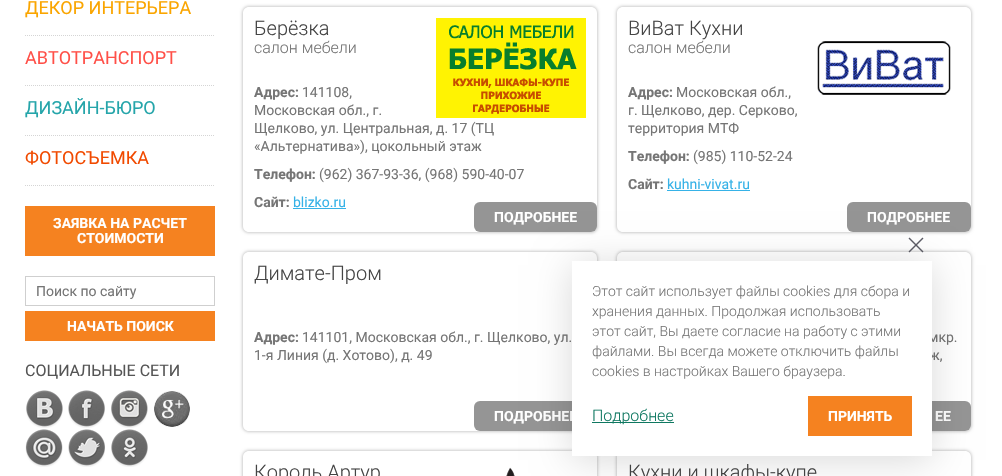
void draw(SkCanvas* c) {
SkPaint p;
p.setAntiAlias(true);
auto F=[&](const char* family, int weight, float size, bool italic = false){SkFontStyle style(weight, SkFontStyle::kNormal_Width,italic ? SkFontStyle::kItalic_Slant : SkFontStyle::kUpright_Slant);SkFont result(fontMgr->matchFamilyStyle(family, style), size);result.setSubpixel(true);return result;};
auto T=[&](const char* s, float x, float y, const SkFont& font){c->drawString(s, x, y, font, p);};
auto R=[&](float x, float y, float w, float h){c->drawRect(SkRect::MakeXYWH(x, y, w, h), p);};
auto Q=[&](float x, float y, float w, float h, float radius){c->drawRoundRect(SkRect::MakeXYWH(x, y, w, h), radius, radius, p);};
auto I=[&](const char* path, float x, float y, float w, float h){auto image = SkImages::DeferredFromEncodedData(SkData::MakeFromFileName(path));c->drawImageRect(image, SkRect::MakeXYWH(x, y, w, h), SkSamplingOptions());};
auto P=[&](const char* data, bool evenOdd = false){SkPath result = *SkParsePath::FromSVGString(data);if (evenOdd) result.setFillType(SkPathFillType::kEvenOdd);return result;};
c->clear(0xffffffff);
p.setStroke(true);
p.setStrokeWidth(1);
p.setColor(0xffd5d5d5);
p.setPathEffect(SkDashPathEffect::Make({{1,1}}, 0));
c->drawPath(P("M25 35.5h190"),p);
p.setPathEffect(nullptr);
auto f1 = F("Roboto",400,18);
p.setStroke(false);
p.setColor(0xfffaa500);
T("ДЕКОР ИНТЕРЬЕРА",25,14,f1);
p.setStroke(true);
p.setColor(0xffd5d5d5);
p.setPathEffect(SkDashPathEffect::Make({{1,1}}, 0));
c->drawPath(P("M25 85.5h190"),p);
p.setPathEffect(nullptr);
p.setStroke(false);
p.setColor(0xffff5048);
T("АВТОТРАНСПОРТ",25,64,f1);
p.setStroke(true);
p.setColor(0xffd5d5d5);
p.setPathEffect(SkDashPathEffect::Make({{1,1}}, 0));
c->drawPath(P("M25 135.5h190"),p);
p.setPathEffect(nullptr);
p.setStroke(false);
p.setColor(0xff25a5aa);
T("ДИЗАЙН-БЮРО",25,114,f1);
p.setStroke(true);
p.setColor(0xffd5d5d5);
p.setPathEffect(SkDashPathEffect::Make({{1,1}}, 0));
c->drawPath(P("M25 185.5h190"),p);
p.setPathEffect(nullptr);
p.setStroke(false);
p.setColor(0xfff14a00);
T("ФОТОСЪЕМКА",25,164,f1);
p.setColor(0xfff58220);
R(25,206,190,50);
auto f2 = F("Roboto",700,14);
p.setColor(0xffffffff);
T("ЗАЯВКА НА РАСЧЕТ",53,228,f2);
T("СТОИМОСТИ",77,243,f2);
p.setStroke(true);
p.setColor(0xffcfcfcf);
c->drawRect(SkRect::MakeXYWH(25.5,276.5,189,29),p);
auto f3 = F("Roboto",400,14);
p.setStroke(false);
p.setColor(0xff757575);
T("Поиск по сайту",36,296,f3);
p.setColor(0xfff58220);
R(25,311,190,30);
p.setColor(0xffffffff);
T("НАЧАТЬ ПОИСК",67,331,f2);
auto f4 = F("Roboto",400,16);
p.setColor(0xff555555);
T("СОЦИАЛЬНЫЕ СЕТИ",25,376,f4);
I("1.png",26,390,37,38);
I("2.png",68,390,37,38);
I("3.png",111,390,37,38);
I("4.png",154,391,36,36);
I("5.png",25,429,38,38);
I("6.png",68,429,37,38);
I("7.png",111,429,37,38);
c->save();
c->clipPath(P("M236 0h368v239h-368zm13 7h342c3.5 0 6 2.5 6 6v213c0 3.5-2.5 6-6 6h-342c-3.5 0-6-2.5-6-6v-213c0-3.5 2.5-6 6-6z",true),true);
p.setColor(0xffcccccc);
p.setMaskFilter(SkMaskFilter::MakeBlur(kNormal_SkBlurStyle, 1.5));
c->drawRoundRect(SkRect::MakeXYWH(242,6,356,227),7,7,p);
p.setMaskFilter(nullptr);
c->restore();
auto f5 = F("Roboto",300,20);
p.setColor(0xff444444);
T("Берёзка",254,35,f5);
auto f6 = F("Roboto",300,16);
p.setColor(0xff757575);
T("салон мебели",254,53,f6);
I("8.png",436,18,150,100);
T("Адрес:",254,97,f2);
T("141108,",302,97,f3);
T("Московская обл., г.",254,115,f3);
T("Щелково, ул. Центральная, д. 17 (ТЦ",254,133,f3);
T("«Альтернатива»), цокольный этаж",254,151,f3);
T("Телефон:",254,179,f2);
T("(962) 367-93-36, (968) 590-40-07",319,179,f3);
T("Сайт:",254,207,f2);
p.setColor(0xff36b2e7);
T("blizko.ru",293,207,f3);
R(293,208,53,1);
p.setColor(0xff959595);
Q(474,202,123,30,6);
p.setColor(0xffffffff);
T("ПОДРОБНЕЕ",494,222,f2);
c->save();
c->clipPath(P("M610 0h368v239h-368zm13 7h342c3.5 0 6 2.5 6 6v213c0 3.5-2.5 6-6 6h-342c-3.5 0-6-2.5-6-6v-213c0-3.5 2.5-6 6-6z",true),true);
p.setColor(0xffcccccc);
p.setMaskFilter(SkMaskFilter::MakeBlur(kNormal_SkBlurStyle, 1.5));
c->drawRoundRect(SkRect::MakeXYWH(616,6,356,227),7,7,p);
p.setMaskFilter(nullptr);
c->restore();
p.setColor(0xff444444);
T("ВиВат Кухни",628,35,f5);
p.setColor(0xff757575);
T("салон мебели",628,53,f6);
I("9.png",817,41,134,54);
T("Адрес:",628,97,f2);
T("Московская обл.,",676,97,f3);
T("г. Щелково, дер. Серково,",628,115,f3);
T("территория МТФ",628,133,f3);
T("Телефон:",628,161,f2);
T("(985) 110-52-24",693,161,f3);
T("Сайт:",628,189,f2);
p.setColor(0xff36b2e7);
T("kuhni-vivat.ru",667,189,f3);
R(667,190,83,1);
p.setColor(0xff959595);
Q(847,202,124,30,6);
p.setColor(0xffffffff);
T("ПОДРОБНЕЕ",867,222,f2);
c->save();
c->clipPath(P("M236 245h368v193h-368zm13 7h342c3.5 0 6 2.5 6 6v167c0 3.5-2.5 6-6 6h-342c-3.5 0-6-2.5-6-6v-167c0-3.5 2.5-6 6-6z",true),true);
p.setColor(0xffcccccc);
p.setMaskFilter(SkMaskFilter::MakeBlur(kNormal_SkBlurStyle, 1.5));
c->drawRoundRect(SkRect::MakeXYWH(242,251,356,181),7,7,p);
p.setMaskFilter(nullptr);
c->restore();
p.setColor(0xff444444);
T("Димате-Пром",254,280,f5);
p.setColor(0xff757575);
T("Адрес:",254,342,f2);
T("141101, Московская обл., г. Щелково, ул.",302,342,f3);
T("1-я Линия (д. Хотово), д. 49",254,360,f3);
p.setColor(0xff959595);
Q(474,401,123,30,6);
p.setColor(0xffffffff);
T("ПОДРОБНЕЕ",494,421,f2);
c->save();
c->clipPath(P("M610 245h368v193h-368zm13 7h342c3.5 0 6 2.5 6 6v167c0 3.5-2.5 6-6 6h-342c-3.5 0-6-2.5-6-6v-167c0-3.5 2.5-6 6-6z",true),true);
p.setColor(0xffcccccc);
p.setMaskFilter(SkMaskFilter::MakeBlur(kNormal_SkBlurStyle, 1.5));
c->drawRoundRect(SkRect::MakeXYWH(616,251,356,181),7,7,p);
p.setMaskFilter(nullptr);
c->restore();
p.setColor(0xff757575);
T("мкр.",928,342,f3);
T("ж,",929,360,f3);
p.setColor(0xff959595);
Q(847,401,124,30,6);
p.setColor(0xffffffff);
T("ЕЕ",935,421,f2);
c->save();
c->clipPath(P("M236 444h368v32h-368zm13 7h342c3.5 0 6 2.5 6 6v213c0 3.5-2.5 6-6 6h-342c-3.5 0-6-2.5-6-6v-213c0-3.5 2.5-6 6-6z",true),true);
p.setColor(0xffcccccc);
p.setMaskFilter(SkMaskFilter::MakeBlur(kNormal_SkBlurStyle, 1.5));
c->drawRoundRect(SkRect::MakeXYWH(242,450,356,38),7,7,p);
p.setMaskFilter(nullptr);
c->restore();
p.setColor(0xff444444);
T("Король Артур",254,479,f5);
I("10.png",506,467,9,9);
c->save();
c->clipPath(P("M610 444h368v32h-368zm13 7h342c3.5 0 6 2.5 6 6v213c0 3.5-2.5 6-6 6h-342c-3.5 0-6-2.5-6-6v-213c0-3.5 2.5-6 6-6z",true),true);
p.setColor(0xffcccccc);
p.setMaskFilter(SkMaskFilter::MakeBlur(kNormal_SkBlurStyle, 1.5));
c->drawRoundRect(SkRect::MakeXYWH(616,450,356,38),7,7,p);
p.setMaskFilter(nullptr);
c->restore();
p.setColor(0xff444444);
T("Кухни и шкафы-купе",628,479,f5);
p.setColor(0x26000000);
p.setMaskFilter(SkMaskFilter::MakeBlur(kNormal_SkBlurStyle, 18));
c->drawRect(SkRect::MakeXYWH(572,265,360,195),p);
p.setMaskFilter(nullptr);
p.setColor(0xffffffff);
R(572,261,360,195);
p.setColor(0xff5b5b64);
c->drawPath(P("M909.5 237.5l14 14l-1 1l-14-14z"),p);
c->drawPath(P("M908.5 251.5l14-14l1 1l-14 14z"),p);
auto f7 = F("Roboto",300,14);
p.setColor(0xff757575);
T("Этот сайт использует файлы cookies для сбора и",592,296,f7);
T("хранения данных. Продолжая использовать",592,316,f7);
T("этот сайт, Вы даете согласие на работу с этими",592,336,f7);
T("файлами. Вы всегда можете отключить файлы",592,356,f7);
T("cookies в настройках Вашего браузера.",592,376,f7);
p.setColor(0xff0f7861);
R(592,422,82,1);
T("Подробнее",592,421,f6);
p.setColor(0xfff58220);
R(808,396,104,40);
p.setColor(0xffffffff);
T("ПРИНЯТЬ",828,421,f2);
}
